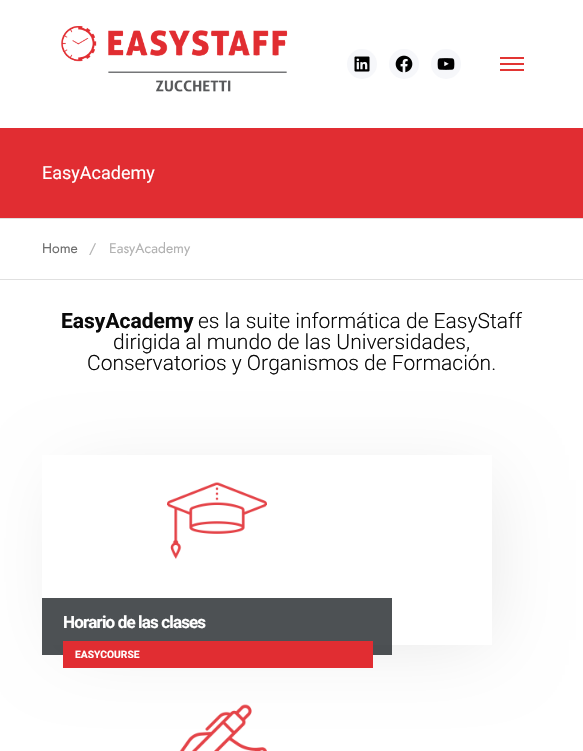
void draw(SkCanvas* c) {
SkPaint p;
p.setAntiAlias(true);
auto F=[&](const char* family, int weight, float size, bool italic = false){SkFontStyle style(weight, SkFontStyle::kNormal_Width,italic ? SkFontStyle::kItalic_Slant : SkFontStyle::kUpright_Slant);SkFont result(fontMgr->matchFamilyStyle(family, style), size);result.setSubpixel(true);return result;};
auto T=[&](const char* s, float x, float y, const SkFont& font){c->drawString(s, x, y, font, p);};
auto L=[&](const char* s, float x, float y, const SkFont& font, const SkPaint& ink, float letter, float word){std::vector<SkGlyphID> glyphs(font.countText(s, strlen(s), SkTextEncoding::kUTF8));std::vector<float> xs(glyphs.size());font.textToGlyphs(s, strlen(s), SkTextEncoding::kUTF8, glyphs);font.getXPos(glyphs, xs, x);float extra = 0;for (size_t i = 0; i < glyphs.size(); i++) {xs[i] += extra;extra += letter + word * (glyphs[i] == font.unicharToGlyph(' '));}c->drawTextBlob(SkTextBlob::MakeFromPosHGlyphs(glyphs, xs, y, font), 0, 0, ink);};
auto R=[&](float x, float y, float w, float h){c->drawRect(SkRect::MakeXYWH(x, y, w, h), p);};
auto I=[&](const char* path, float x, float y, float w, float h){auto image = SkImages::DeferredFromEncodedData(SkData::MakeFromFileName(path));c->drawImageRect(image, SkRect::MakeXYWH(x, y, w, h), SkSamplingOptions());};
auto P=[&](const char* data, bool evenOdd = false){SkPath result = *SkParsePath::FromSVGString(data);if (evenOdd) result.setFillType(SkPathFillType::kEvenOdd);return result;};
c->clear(0xffffffff);
I("1.png",61,26,227,66);
p.setColor(0xfff6f7fa);
c->drawCircle(362,64,15,p);
I("2.png",354,56,16,16);
c->drawCircle(404,64,15,p);
I("3.png",395,55,18,18);
c->drawCircle(446,64,15,p);
I("4.png",437,58,18,12);
I("5.png",500,57,24,14);
p.setColor(0xffe12d32);
R(0,128,583,90);
auto f1 = F("Roboto",400,18);
p.setColor(0xffffffff);
T("EasyAcademy",42,179,f1);
p.setColor(0xffe0e0e0);
R(0,218,583,1);
R(0,279,583,1);
auto f2 = F("Jost",400,14);
p.setColor(0xff6e6e6e);
T("Home",42,253,f2);
p.setColor(0xffb2b2b2);
T("/",89,253,f2);
T("EasyAcademy",109,253,f2);
auto f3 = F("Roboto",700,21);
p.setColor(0xff0a0a0a);
T("EasyAcademy",61,328,f3);
auto f4 = F("Roboto",300,21);
T("es la suite informática de EasyStaff",198,328,f4);
T("dirigida al mundo de las Universidades,",113,349,f4);
T("Conservatorios y Organismos de Formación.",87,370,f4);
c->save();
c->clipPath(P("M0 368h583v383h-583zm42 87h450v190h-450z",true),true);
p.setColor(0x1a000000);
p.setMaskFilter(SkMaskFilter::MakeBlur(kNormal_SkBlurStyle, 37));
c->drawRect(SkRect::MakeXYWH(67,480,420,160),p);
p.setMaskFilter(nullptr);
c->restore();
I("6.png",167,482,100,77);
p.setColor(0xcc212529);
R(42,598,350,57);
auto f5 = F("Roboto",700,17);
p.setColor(0xffffffff);
L("Horario de las clases",63,628,f5,p,-.85,0);
p.setColor(0xffe12d32);
R(63,641,310,27);
auto f6 = F("Roboto",700,10.25);
p.setColor(0xffffffff);
T("EASYCOURSE",75,658,f6);
I("7.png",179,704,88,47);
}
